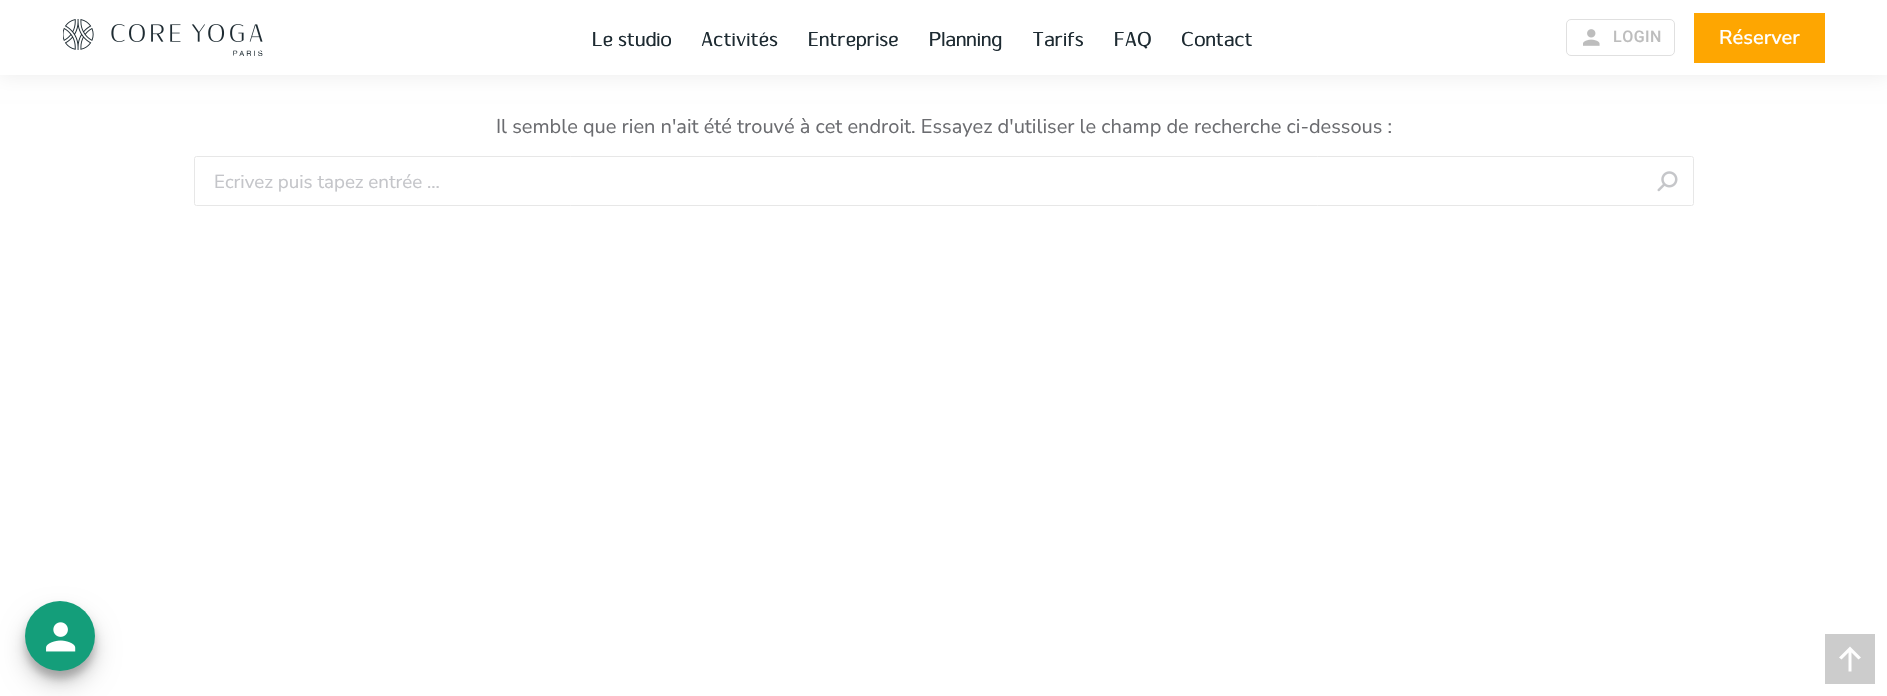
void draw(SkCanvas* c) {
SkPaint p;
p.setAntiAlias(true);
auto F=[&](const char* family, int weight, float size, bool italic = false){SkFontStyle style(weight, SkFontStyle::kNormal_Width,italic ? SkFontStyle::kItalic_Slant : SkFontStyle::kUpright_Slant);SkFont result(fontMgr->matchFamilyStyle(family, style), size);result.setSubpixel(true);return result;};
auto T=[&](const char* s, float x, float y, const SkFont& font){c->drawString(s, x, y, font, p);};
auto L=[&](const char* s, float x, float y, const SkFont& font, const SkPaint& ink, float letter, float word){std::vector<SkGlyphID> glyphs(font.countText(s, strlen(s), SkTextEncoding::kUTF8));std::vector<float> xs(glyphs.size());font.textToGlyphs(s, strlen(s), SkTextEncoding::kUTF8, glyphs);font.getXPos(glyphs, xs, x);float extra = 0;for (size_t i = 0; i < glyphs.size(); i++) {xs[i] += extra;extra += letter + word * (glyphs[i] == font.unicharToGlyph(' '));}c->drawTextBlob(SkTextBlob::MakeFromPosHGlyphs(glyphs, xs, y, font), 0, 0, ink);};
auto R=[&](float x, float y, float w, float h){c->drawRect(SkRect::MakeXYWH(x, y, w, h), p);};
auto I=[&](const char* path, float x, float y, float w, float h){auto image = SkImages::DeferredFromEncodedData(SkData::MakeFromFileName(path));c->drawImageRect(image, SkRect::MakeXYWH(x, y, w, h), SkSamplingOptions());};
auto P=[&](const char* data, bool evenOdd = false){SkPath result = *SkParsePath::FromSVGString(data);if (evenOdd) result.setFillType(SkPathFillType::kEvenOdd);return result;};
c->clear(0xffffffff);
p.setColor(0x12000000);
p.setMaskFilter(SkMaskFilter::MakeBlur(kNormal_SkBlurStyle, 9.5));
c->drawRect(SkRect::MakeXYWH(-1,-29,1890,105),p);
p.setMaskFilter(nullptr);
p.setColor(0xffffffff);
R(0,0,1887,75);
I("1.png",63,19,200,37);
auto f1 = F("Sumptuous",400,20);
p.setColor(0xff1e2b32);
T("Le studio",592,46,f1);
T("Activités",701,46,f1);
T("Entreprise",808,46,f1);
T("Planning",929,46,f1);
T("Tarifs",1032,46,f1);
T("FAQ",1114,46,f1);
T("Contact",1181,46,f1);
p.setStroke(true);
p.setStrokeWidth(1);
p.setColor(0xffe0e0e0);
c->drawRoundRect(SkRect::MakeXYWH(1566.5,19.5,108,36),4.5,4.5,p);
I("2.png",1583,29,17,17);
auto f2 = F("Roboto",500,16);
p.setStroke(false);
p.setColor(0xffbdbdbd);
L("LOGIN",1613,42,f2,p,.5,0);
p.setColor(0xfffea601);
R(1694,13,131,50);
auto f3 = F("Nunito Sans",600,20);
p.setColor(0xffffffff);
T("Réserver",1719,44,f3);
auto f4 = F("Nunito Sans",400,20);
p.setColor(0xff6b6c70);
T("Il semble que rien n'ait été trouvé à cet endroit. Essayez d'utiliser le champ de recherche ci-dessous :",496,133,f4);
p.setStroke(true);
p.setColor(0xffe7e7e7);
c->drawRoundRect(SkRect::MakeXYWH(194.5,156.5,1499,49),2,2,p);
auto f5 = F("Nunito Sans",400,18.75);
p.setStroke(false);
p.setColor(0xffc4c5c9);
T("Ecrivez puis tapez entrée ...",214,188,f5);
I("3.png",1657,171,21,21);
p.setColor(0xffcccccc);
R(1825,634,50,50);
p.setColor(0xffffffff);
c->drawPath(P("M1839 657.5l2.5 2l7-7v19h3v-19l7 7l2.5-2l-11-11z"),p);
p.setColor(0x3b000000);
p.setMaskFilter(SkMaskFilter::MakeBlur(kNormal_SkBlurStyle, 4));
c->drawRoundRect(SkRect::MakeXYWH(25,609,70,70),35,35,p);
p.setMaskFilter(nullptr);
p.setColor(0x30000000);
p.setMaskFilter(SkMaskFilter::MakeBlur(kNormal_SkBlurStyle, 12.5));
c->drawRoundRect(SkRect::MakeXYWH(25,614,70,70),35,35,p);
p.setMaskFilter(nullptr);
p.setColor(0xff149e7a);
c->drawCircle(60,636,35,p);
I("4.png",46,622,30,30);
}
